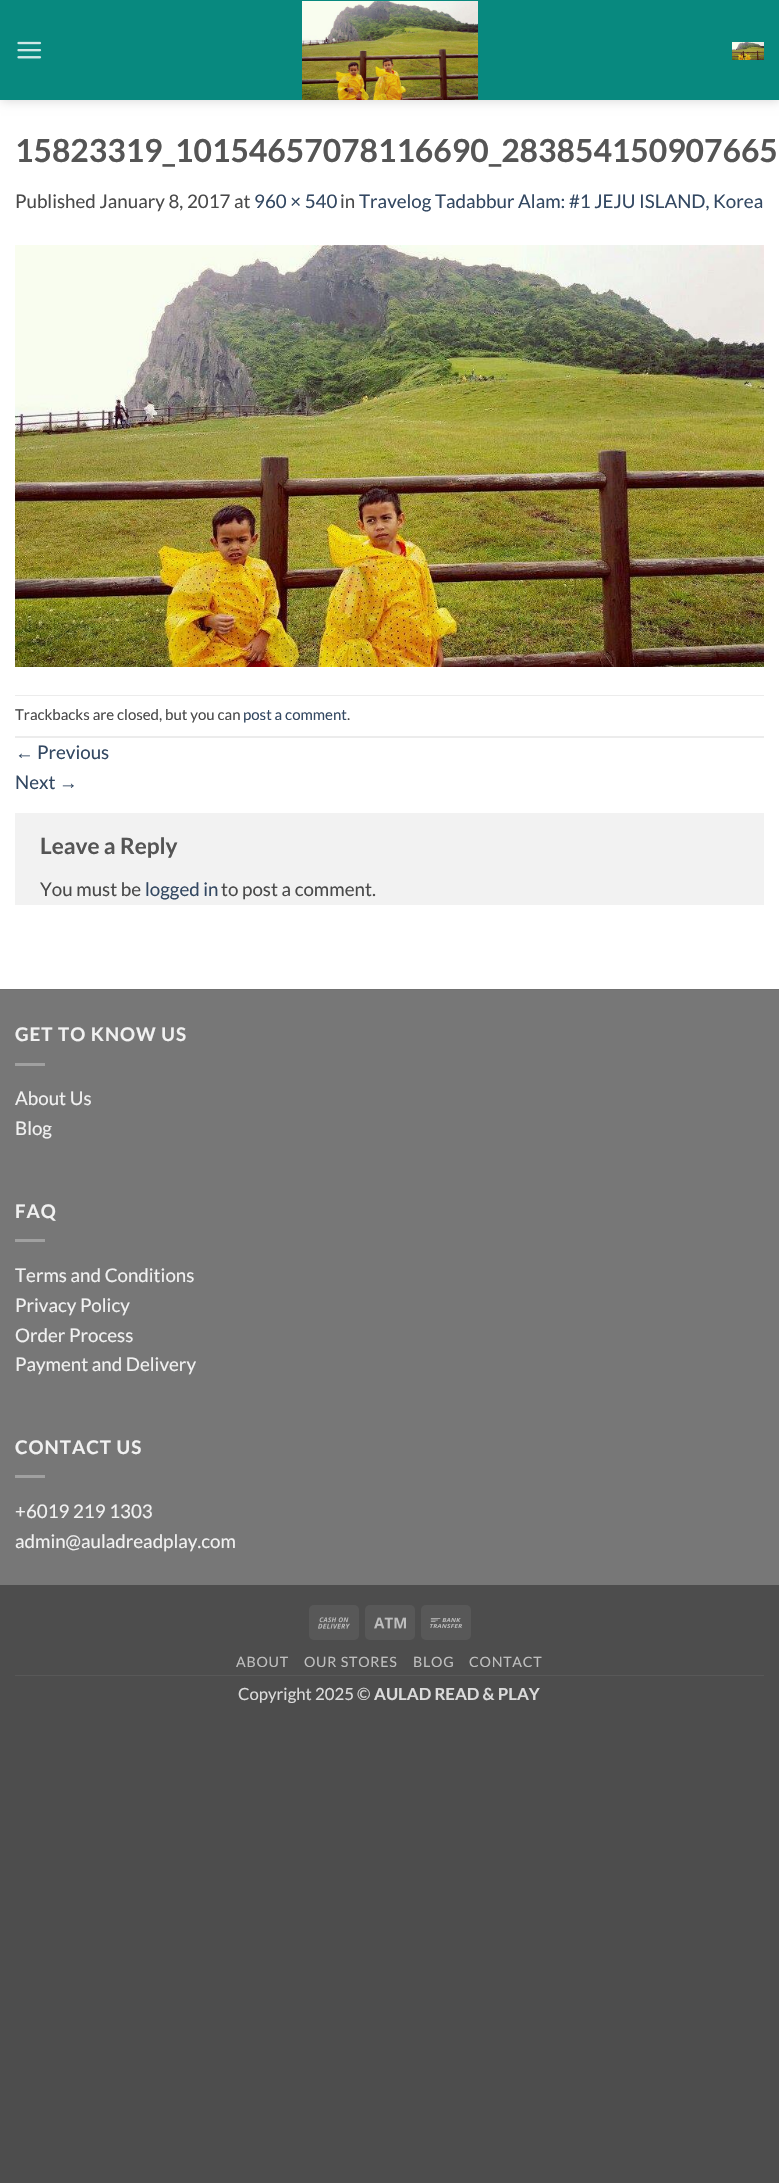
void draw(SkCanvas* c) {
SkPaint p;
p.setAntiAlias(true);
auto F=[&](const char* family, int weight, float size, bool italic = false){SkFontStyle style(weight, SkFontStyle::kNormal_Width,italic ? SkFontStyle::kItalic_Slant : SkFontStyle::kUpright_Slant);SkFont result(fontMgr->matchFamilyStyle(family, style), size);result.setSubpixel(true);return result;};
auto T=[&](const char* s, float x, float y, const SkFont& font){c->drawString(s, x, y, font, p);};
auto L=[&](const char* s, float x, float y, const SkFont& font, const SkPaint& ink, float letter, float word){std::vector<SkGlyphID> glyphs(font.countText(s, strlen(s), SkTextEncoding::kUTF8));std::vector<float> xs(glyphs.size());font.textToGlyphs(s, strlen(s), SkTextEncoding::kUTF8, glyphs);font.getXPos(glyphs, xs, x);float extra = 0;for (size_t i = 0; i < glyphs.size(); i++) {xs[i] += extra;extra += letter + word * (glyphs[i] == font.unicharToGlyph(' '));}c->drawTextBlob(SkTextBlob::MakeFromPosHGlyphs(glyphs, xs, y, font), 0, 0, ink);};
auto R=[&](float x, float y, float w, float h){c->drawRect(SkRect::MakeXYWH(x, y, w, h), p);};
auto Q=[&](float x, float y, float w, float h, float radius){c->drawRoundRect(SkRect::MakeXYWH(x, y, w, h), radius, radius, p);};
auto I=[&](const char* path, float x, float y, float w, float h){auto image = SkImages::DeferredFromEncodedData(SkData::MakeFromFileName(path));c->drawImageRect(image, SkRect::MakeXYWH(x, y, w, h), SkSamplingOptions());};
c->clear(0xff4d4d4d);
p.setColor(0xffffffff);
R(0,100,779,889);
p.setColor(0x26000000);
p.setMaskFilter(SkMaskFilter::MakeBlur(kNormal_SkBlurStyle, 5));
c->drawRect(SkRect::MakeXYWH(1,1,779,100),p);
p.setMaskFilter(nullptr);
p.setColor(0xff08897f);
R(0,0,779,100);
I("1.png",17,41,25,18);
I("2.png",302,1,176,99);
I("3.png",732,42,32,18);
auto f1 = F("Lato",700,31.8);
p.setColor(0xff555555);
T("15823319_10154657078116690_283854150907665",15,162,f1);
auto f2 = F("Lato",400,18.75);
p.setColor(0xff4a4a4a);
T("Published January 8, 2017 at",15,208,f2);
p.setColor(0xff334862);
T("960 × 540",254,208,f2);
p.setColor(0xff4a4a4a);
T("in",340,208,f2);
p.setColor(0xff334862);
T("Travelog Tadabbur Alam: #1 JEJU ISLAND, Korea",359,208,f2);
I("4.png",15,245,749,422);
p.setColor(0xffececec);
R(15,695,749,1);
R(15,736,749,2);
auto f3 = F("Lato",400,15);
p.setColor(0xff4a4a4a);
T("Trackbacks are closed, but you can",15,720,f3);
p.setColor(0xff334862);
T("post a comment",243,720,f3);
p.setColor(0xff4a4a4a);
T(".",347,720,f3);
auto f4 = F("Liberation Sans",400,18.75);
p.setColor(0xff334862);
T("←",15,759,f4);
T("Previous",37,759,f2);
T("Next",15,789,f2);
T("→",59,789,f4);
p.setColor(0xfff2f2f2);
R(15,813,749,92);
auto f5 = F("Lato",700,22.5);
p.setColor(0xff555555);
T("Leave a Reply",40,854,f5);
p.setColor(0xff4a4a4a);
T("You must be",40,896,f2);
p.setColor(0xff334862);
T("logged in",145,896,f2);
p.setColor(0xff4a4a4a);
T("to post a comment.",221,896,f2);
p.setColor(0xff777777);
R(0,990,779,595);
p.setColor(0xff717171);
R(0,989,779,1);
auto f6 = F("Lato",700,18.75);
p.setColor(0xfff1f1f1);
L("GET TO KNOW US",15,1041,f6,p,1,0);
p.setColor(0xffa0a0a0);
R(15,1063,30,3);
p.setColor(0xfff1f1f1);
T("About Us",15,1105,f2);
T("Blog",15,1135,f2);
L("FAQ",15,1218,f6,p,1,0);
p.setColor(0xffa0a0a0);
R(15,1239,30,3);
p.setColor(0xfff1f1f1);
T("Terms and Conditions",15,1282,f2);
T("Privacy Policy",15,1312,f2);
T("Order Process",15,1342,f2);
T("Payment and Delivery",15,1371,f2);
L("CONTACT US",15,1454,f6,p,1,0);
p.setColor(0xffa0a0a0);
R(15,1475,30,3);
p.setColor(0xfff1f1f1);
T("+6019 219 1303",15,1518,f2);
T("admin@auladreadplay.com",15,1548,f2);
p.setColor(0xff585858);
Q(309,1605,50,35,5);
I("5.png",318,1617,32,12);
Q(365,1605,50,35,5);
I("6.png",374,1617,32,12);
Q(421,1605,50,35,5);
I("7.png",430,1618,32,10);
R(15,1675,749,1);
auto f7 = F("Lato",400,14.25);
p.setColor(0xffbfbfbf);
L("ABOUT",236,1667,f7,p,.75,0);
L("OUR STORES",304,1667,f7,p,.75,0);
L("BLOG",413,1667,f7,p,.75,0);
L("CONTACT",469,1667,f7,p,.75,0);
auto f8 = F("Lato",400,16.75);
p.setColor(0xffdbdbdb);
T("Copyright 2025 ©",238,1700,f8);
auto f9 = F("Lato",700,16.75);
T("AULAD READ & PLAY",374,1700,f9);
}
